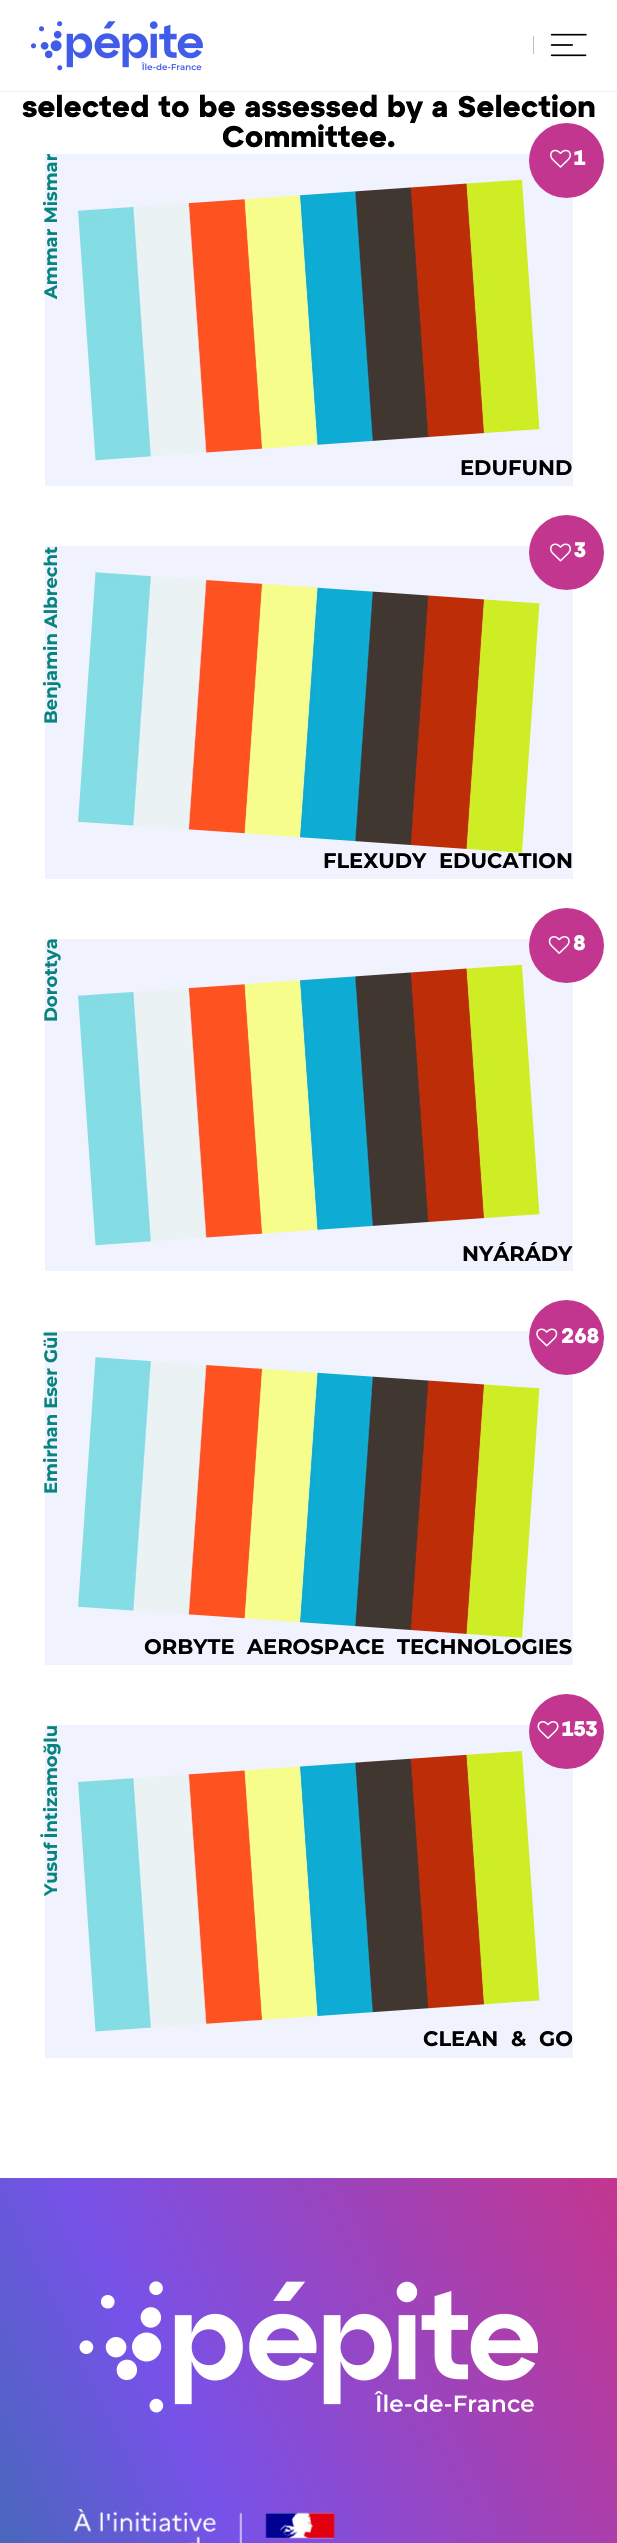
void draw(SkCanvas* c) {
SkPaint p;
p.setAntiAlias(true);
auto F=[&](const char* family, int weight, float size, bool italic = false){SkFontStyle style(weight, SkFontStyle::kNormal_Width,italic ? SkFontStyle::kItalic_Slant : SkFontStyle::kUpright_Slant);SkFont result(fontMgr->matchFamilyStyle(family, style), size);result.setSubpixel(true);return result;};
auto T=[&](const char* s, float x, float y, const SkFont& font){c->drawString(s, x, y, font, p);};
auto L=[&](const char* s, float x, float y, const SkFont& font, const SkPaint& ink, float letter, float word){std::vector<SkGlyphID> glyphs(font.countText(s, strlen(s), SkTextEncoding::kUTF8));std::vector<float> xs(glyphs.size());font.textToGlyphs(s, strlen(s), SkTextEncoding::kUTF8, glyphs);font.getXPos(glyphs, xs, x);float extra = 0;for (size_t i = 0; i < glyphs.size(); i++) {xs[i] += extra;extra += letter + word * (glyphs[i] == font.unicharToGlyph(' '));}c->drawTextBlob(SkTextBlob::MakeFromPosHGlyphs(glyphs, xs, y, font), 0, 0, ink);};
auto R=[&](float x, float y, float w, float h){c->drawRect(SkRect::MakeXYWH(x, y, w, h), p);};
auto I=[&](const char* path, float x, float y, float w, float h){auto image = SkImages::DeferredFromEncodedData(SkData::MakeFromFileName(path));c->drawImageRect(image, SkRect::MakeXYWH(x, y, w, h), SkSamplingOptions());};
c->clear(0xffffffff);
p.setColor(0xfff0f2fd);
R(0,91,617,1);
I("1.png",30,21,173,50);
p.setColor(0xffbfbfbf);
R(533,36,1,18);
I("2.png",550,33,37,24);
auto f1 = F("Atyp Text",700,30);
p.setColor(0xff000000);
T("selected to be assessed by a Selection",22,117,f1);
T("Committee.",222,147,f1);
p.setColor(0xfff0f2fd);
R(45,154,528,332);
auto f2 = F("Montserrat",700,18);
p.setColor(0xff088480);
c->save();
c->rotate(-90,57,299);
T("Ammar Mismar",57,299,f2);
c->restore();
I("4.png",78,179,462,282);
p.setColor(0xffc3368f);
c->drawCircle(566.5,160.5,37.5,p);
I("3.png",550,149,21,19);
auto f3 = F("Atyp Text",700,21);
p.setColor(0xffffffff);
T("1",574,165,f3);
auto f4 = F("Montserrat",700,21);
p.setColor(0xff000000);
T("EDUFUND",460,475,f4);
p.setColor(0xfff0f2fd);
R(45,546,528,333);
p.setColor(0xff088480);
c->save();
c->rotate(-90,57,724);
T("Benjamin Albrecht",57,724,f2);
c->restore();
I("6.png",78,572,462,281);
p.setColor(0xffc3368f);
c->drawCircle(566.5,552.5,37.5,p);
I("5.png",550,543,21,19);
p.setColor(0xffffffff);
T("3",574,557,f3);
p.setColor(0xff000000);
T("FLEXUDY",323,868,f4);
T("EDUCATION",439,868,f4);
p.setColor(0xfff0f2fd);
R(45,939,528,332);
p.setColor(0xff088480);
c->save();
c->rotate(-90,57,1022);
T("Dorottya",57,1022,f2);
c->restore();
I("8.png",78,964,462,282);
p.setColor(0xffc3368f);
c->drawCircle(566.5,945.5,37.5,p);
I("7.png",548,936,22,18);
p.setColor(0xffffffff);
T("8",573,950,f3);
p.setColor(0xff000000);
T("NYÁRÁDY",462,1261,f4);
p.setColor(0xfff0f2fd);
R(45,1331,528,334);
I("10.png",78,1357,462,281);
p.setColor(0xffc3368f);
c->drawCircle(566.5,1337.5,37.5,p);
I("9.png",536,1328,22,19);
p.setColor(0xffffffff);
T("268",561,1343,f3);
p.setColor(0xff088480);
c->save();
c->rotate(-90,57,1494);
T("Emirhan Eser Gül",57,1494,f2);
c->restore();
p.setColor(0xff000000);
T("ORBYTE",144,1654,f4);
T("AEROSPACE",247,1654,f4);
T("TECHNOLOGIES",397,1654,f4);
p.setColor(0xfff0f2fd);
R(45,1725,528,333);
p.setColor(0xff088480);
c->save();
c->rotate(-90,57,1896);
L("Yusuf İntizamoğlu",57,1896,f2,p,0,-1);
c->restore();
I("12.png",78,1751,462,281);
p.setColor(0xffc3368f);
c->drawCircle(566.5,1731.5,37.5,p);
I("11.png",537,1721,22,18);
p.setColor(0xffffffff);
T("153",562,1736,f3);
p.setColor(0xff000000);
T("CLEAN",423,2046,f4);
T("&",511,2046,f4);
T("GO",539,2046,f4);
{
const SkColor colors[] = {0xff088480,0xff7752e8,0xffc3368f};
const float stops[] = {0,.5,1};
const SkPoint ends[] = {{-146,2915}, {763,2490}};
p.setShader(SkGradientShader::MakeLinear(ends, colors, stops, 3, SkTileMode::kClamp));
p.setAlpha(255);
}
R(0,2178,617,365);
I("13.png",79,2281,459,132);
I("14.png",74,2509,261,34);
}
